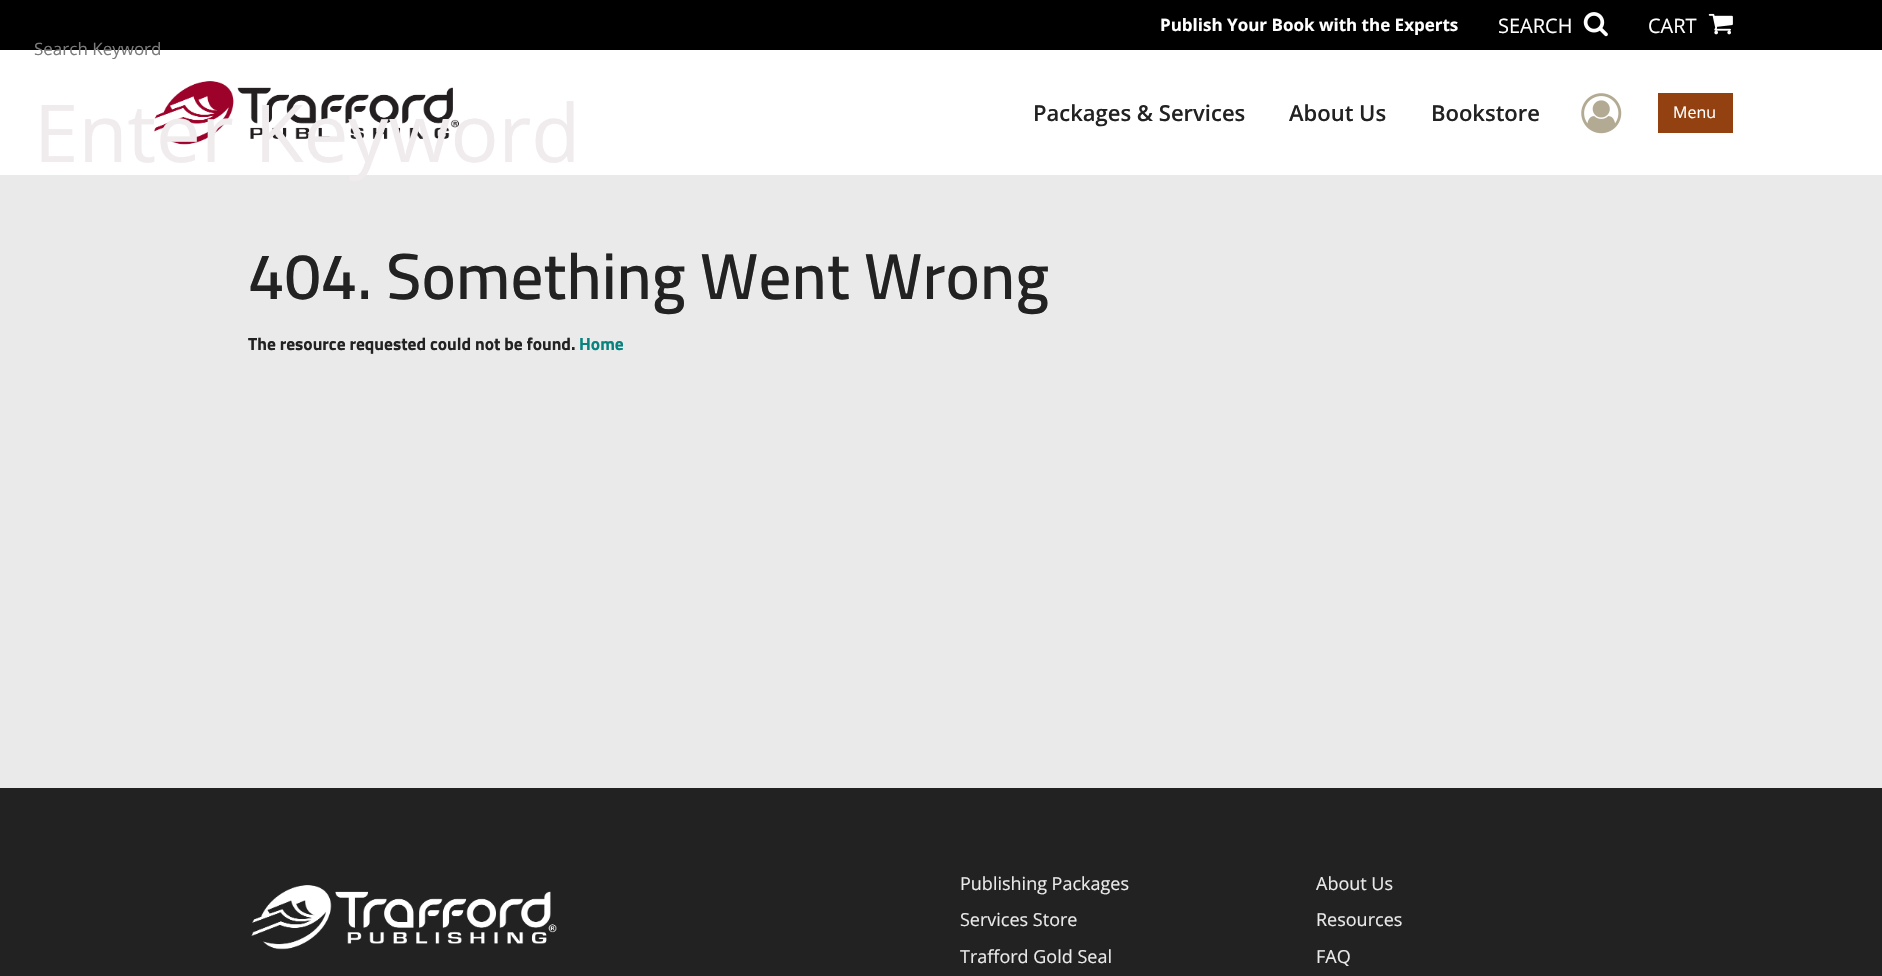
void draw(SkCanvas* c) {
SkPaint p;
p.setAntiAlias(true);
auto F=[&](const char* family, int weight, float size, bool italic = false){SkFontStyle style(weight, SkFontStyle::kNormal_Width,italic ? SkFontStyle::kItalic_Slant : SkFontStyle::kUpright_Slant);SkFont result(fontMgr->matchFamilyStyle(family, style), size);result.setSubpixel(true);return result;};
auto T=[&](const char* s, float x, float y, const SkFont& font){c->drawString(s, x, y, font, p);};
auto R=[&](float x, float y, float w, float h){c->drawRect(SkRect::MakeXYWH(x, y, w, h), p);};
auto I=[&](const char* path, float x, float y, float w, float h){auto image = SkImages::DeferredFromEncodedData(SkData::MakeFromFileName(path));c->drawImageRect(image, SkRect::MakeXYWH(x, y, w, h), SkSamplingOptions());};
c->clear(0xffeaeaea);
p.setColor(0xff000000);
R(0,0,1882,50);
auto f1 = F("Open Sans",400,20);
p.setColor(0xffffffff);
T("SEARCH",1498,33,f1);
I("1.png",1583,12,25,25);
T("CART",1648,33,f1);
I("2.png",1708,13,25,22);
R(0,50,1882,125);
auto f2 = F("Open Sans",400,17);
p.setColor(0xff7b7b7b);
T("Search Keyword",34,55,f2);
I("3.png",153,81,306,64);
auto f3 = F("Open Sans",400,80);
p.setColor(0xfff0ebec);
T("Enter Keyword",34,162,f3);
auto f4 = F("Open Sans",700,17);
p.setColor(0xffffffff);
T("Publish Your Book with the Experts",1160,31,f4);
auto f5 = F("Open Sans",600,22);
p.setColor(0xff222222);
T("Packages & Services",1033,121,f5);
T("About Us",1289,121,f5);
T("Bookstore",1431,121,f5);
I("4.png",1581,93,41,41);
p.setColor(0xff934111);
R(1658,93,75,40);
auto f6 = F("Open Sans",400,16);
p.setColor(0xffffffff);
T("Menu",1673,118,f6);
auto f7 = F("Cairo",600,65);
p.setColor(0xff222222);
T("404. Something Went Wrong",248,299,f7);
auto f8 = F("Cairo",700,17.5);
T("The resource requested could not be found.",248,350,f8);
p.setColor(0xff07827f);
T("Home",579,350,f8);
p.setColor(0xff222222);
R(0,788,1882,188);
I("5.png",251,885,306,65);
auto f9 = F("Open Sans",400,18);
p.setColor(0xffeaeaea);
T("Publishing Packages",960,890,f9);
T("Services Store",960,926,f9);
T("Trafford Gold Seal",960,963,f9);
T("About Us",1316,890,f9);
T("Resources",1316,926,f9);
T("FAQ",1316,963,f9);
}
